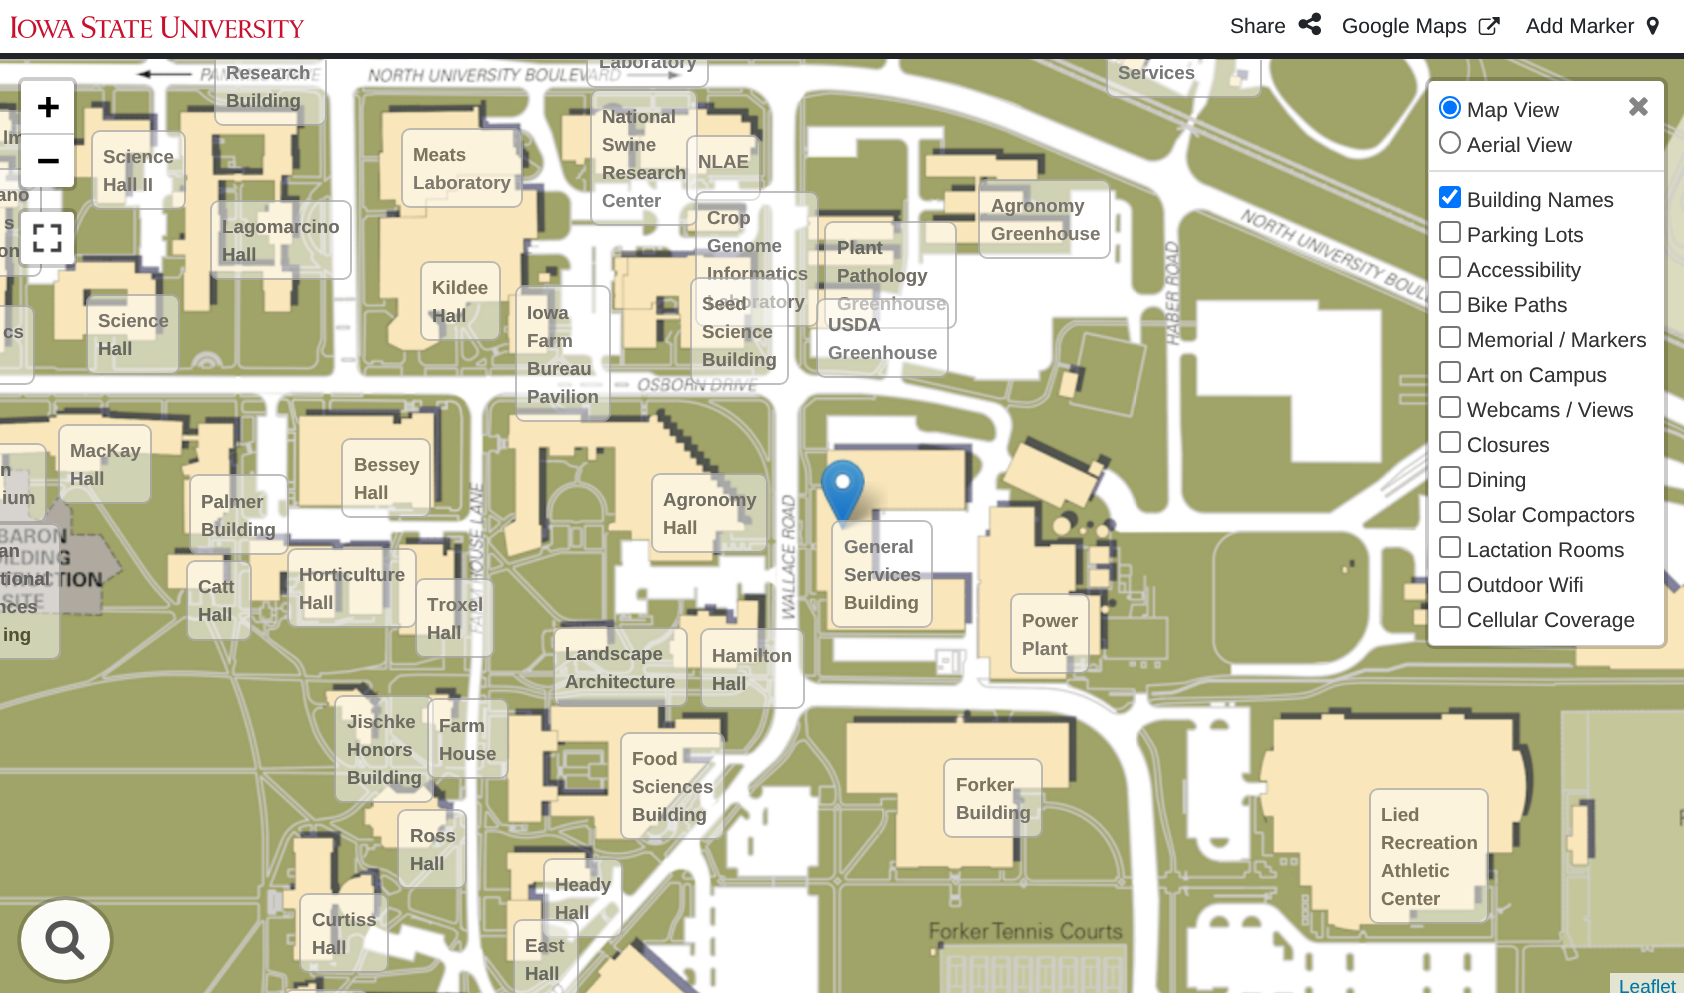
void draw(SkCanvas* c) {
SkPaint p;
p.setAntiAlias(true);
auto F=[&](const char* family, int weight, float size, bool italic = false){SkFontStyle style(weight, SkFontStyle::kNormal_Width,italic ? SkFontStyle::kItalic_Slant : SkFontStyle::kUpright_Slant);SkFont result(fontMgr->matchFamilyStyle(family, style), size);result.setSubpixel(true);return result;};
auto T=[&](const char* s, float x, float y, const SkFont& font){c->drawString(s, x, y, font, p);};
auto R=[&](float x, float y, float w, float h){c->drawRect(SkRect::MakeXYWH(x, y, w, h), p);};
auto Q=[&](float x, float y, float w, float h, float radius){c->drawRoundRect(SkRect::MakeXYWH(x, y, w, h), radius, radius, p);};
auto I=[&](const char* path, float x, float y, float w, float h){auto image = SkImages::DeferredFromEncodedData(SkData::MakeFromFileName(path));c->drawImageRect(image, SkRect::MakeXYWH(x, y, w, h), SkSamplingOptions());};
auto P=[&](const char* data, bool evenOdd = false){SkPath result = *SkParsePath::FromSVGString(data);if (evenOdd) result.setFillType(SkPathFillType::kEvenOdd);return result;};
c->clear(0xffffffff);
p.setColor(0xff212529);
R(0,53,1684,6);
I("1.png",11,16,294,23);
auto f1 = F("Liberation Sans",400,21);
T("Share",1230,33,f1);
I("2.png",1298,12,23,24);
T("Google Maps",1342,33,f1);
I("3.png",1478,17,22,18);
T("Add Marker",1526,33,f1);
I("4.png",1646,16,13,19);
I("5.png",0,59,1684,934);
p.setColor(0x80ffffff);
c->drawPath(P("M214 60h113v57c0 5-4 9-9 9h-95c-5 0-9-4-9-9z"),p);
c->save();
c->clipRect(SkRect::MakeXYWH(0,60,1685,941));
p.setStroke(true);
p.setStrokeWidth(2);
p.setColor(0x80808080);
c->drawRoundRect(SkRect::MakeXYWH(215,-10,111,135),8,8,p);
c->restore();
auto f2 = F("Liberation Sans",700,18.75);
p.setStroke(false);
p.setColor(0xff777777);
T("Research",226,79,f2);
p.setColor(0xff66675d);
T("Building",226,107,f2);
p.setColor(0x80ffffff);
c->drawPath(P("M586 60h123v19c0 5-4 9-9 9h-105c-5 0-9-4-9-9z"),p);
c->save();
c->clipRect(SkRect::MakeXYWH(0,60,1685,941));
p.setStroke(true);
p.setColor(0x80808080);
c->drawRoundRect(SkRect::MakeXYWH(587,-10,121,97),8,8,p);
p.setStroke(false);
p.setColor(0xff777777);
T("Laboratory",599,68,f2);
c->restore();
p.setColor(0x80ffffff);
c->drawPath(P("M1106 60h156v29c0 5-4 9-9 9h-138c-5 0-9-4-9-9z"),p);
c->save();
c->clipRect(SkRect::MakeXYWH(0,60,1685,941));
p.setStroke(true);
p.setColor(0x80808080);
c->drawRoundRect(SkRect::MakeXYWH(1107,19,154,78),8,8,p);
c->restore();
p.setStroke(false);
p.setColor(0xff777777);
T("Services",1118,79,f2);
p.setColor(0x80ffffff);
c->drawPath(P("M0 110h28c5 0 9 4 9 9v63c0 5-4 9-9 9h-28z"),p);
p.setStroke(true);
p.setColor(0x80808080);
c->drawRoundRect(SkRect::MakeXYWH(-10,111,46,79),8,8,p);
p.setStroke(false);
p.setColor(0xff706d64);
T("lm",3,144,f2);
p.setColor(0x80ffffff);
Q(590,89,108,137,9);
p.setStroke(true);
p.setColor(0x80808080);
c->drawRoundRect(SkRect::MakeXYWH(591,90,106,135),8,8,p);
p.setStroke(false);
p.setColor(0xff706d64);
T("National",602,123,f2);
p.setColor(0xff78746a);
T("Swine",602,151,f2);
p.setColor(0xff706d64);
T("Research",602,179,f2);
p.setColor(0xff7f7f7f);
T("Center",602,207,f2);
p.setColor(0x80ffffff);
Q(91,130,95,80,9);
p.setStroke(true);
p.setColor(0x80808080);
c->drawRoundRect(SkRect::MakeXYWH(92,131,93,78),8,8,p);
p.setStroke(false);
p.setColor(0xff78746a);
T("Science",103,163,f2);
T("Hall II",103,191,f2);
p.setColor(0x80ffffff);
Q(401,128,122,80,9);
p.setStroke(true);
p.setColor(0x80808080);
c->drawRoundRect(SkRect::MakeXYWH(402,129,120,78),8,8,p);
p.setStroke(false);
p.setColor(0xff7d745e);
T("Meats",413,161,f2);
p.setColor(0xff7e796e);
T("Laboratory",413,189,f2);
p.setColor(0x80ffffff);
Q(686,135,75,66,9);
p.setStroke(true);
p.setColor(0x80808080);
c->drawRoundRect(SkRect::MakeXYWH(687,136,73,64),8,8,p);
p.setStroke(false);
p.setColor(0xff78746a);
T("NLAE",698,168,f2);
p.setColor(0x80ffffff);
c->drawPath(P("M0 168h33c5 0 9 4 9 9v91c0 5-4 9-9 9h-33z"),p);
p.setStroke(true);
p.setColor(0x80808080);
c->drawRoundRect(SkRect::MakeXYWH(-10,169,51,107),8,8,p);
p.setStroke(false);
p.setColor(0xff706d64);
T("ano",-4,201,f2);
p.setColor(0xff66675d);
T("s",4,229,f2);
T("on",-3,257,f2);
p.setColor(0x80ffffff);
Q(210,200,142,80,9);
p.setStroke(true);
p.setColor(0x80808080);
c->drawRoundRect(SkRect::MakeXYWH(211,201,140,78),8,8,p);
p.setStroke(false);
p.setColor(0xff706d64);
T("Lagomarcino",222,233,f2);
p.setColor(0xff66675d);
T("Hall",222,261,f2);
p.setColor(0x80ffffff);
Q(420,261,81,80,9);
p.setStroke(true);
p.setColor(0x80808080);
c->drawRoundRect(SkRect::MakeXYWH(421,262,79,78),8,8,p);
p.setStroke(false);
p.setColor(0xff7d745e);
T("Kildee",432,294,f2);
p.setColor(0xff66675d);
T("Hall",432,322,f2);
p.setColor(0x80ffffff);
Q(695,191,124,136,9);
p.setStroke(true);
p.setColor(0x80808080);
c->drawRoundRect(SkRect::MakeXYWH(696,192,122,134),8,8,p);
p.setStroke(false);
p.setColor(0xff78746a);
T("Crop",707,224,f2);
p.setColor(0xff777777);
T("Genome",707,252,f2);
p.setColor(0xff78746a);
T("Informatics",707,280,f2);
T("Laboratory",707,308,f2);
p.setColor(0x80ffffff);
Q(824,221,133,108,9);
p.setStroke(true);
p.setColor(0x80808080);
c->drawRoundRect(SkRect::MakeXYWH(825,222,131,106),8,8,p);
p.setStroke(false);
p.setColor(0xff66675d);
T("Plant",837,254,f2);
p.setColor(0xff706d64);
T("Pathology",837,282,f2);
p.setColor(0xff7d7b78);
T("Greenhouse",837,310,f2);
p.setColor(0x80ffffff);
Q(978,179,133,80,9);
p.setStroke(true);
p.setColor(0x80808080);
c->drawRoundRect(SkRect::MakeXYWH(979,180,131,78),8,8,p);
p.setStroke(false);
p.setColor(0xff78746a);
T("Agronomy",991,212,f2);
p.setColor(0xff7e796e);
T("Greenhouse",991,240,f2);
p.setColor(0x80ffffff);
c->drawPath(P("M0 305h26c5 0 9 4 9 9v62c0 5-4 9-9 9h-26z"),p);
p.setStroke(true);
p.setColor(0x80808080);
c->drawRoundRect(SkRect::MakeXYWH(-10,306,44,78),8,8,p);
p.setStroke(false);
p.setColor(0xff6a6964);
T("cs",3,338,f2);
p.setColor(0x80ffffff);
Q(86,294,94,81,9);
p.setStroke(true);
p.setColor(0x80808080);
c->drawRoundRect(SkRect::MakeXYWH(87,295,92,79),8,8,p);
p.setStroke(false);
p.setColor(0xff78746a);
T("Science",98,327,f2);
p.setColor(0xff66675d);
T("Hall",98,355,f2);
p.setColor(0x80ffffff);
Q(515,285,96,137,9);
p.setStroke(true);
p.setColor(0x80808080);
c->drawRoundRect(SkRect::MakeXYWH(516,286,94,135),8,8,p);
p.setStroke(false);
p.setColor(0xff706d64);
T("Iowa",527,319,f2);
p.setColor(0xff78746a);
T("Farm",527,347,f2);
p.setColor(0xff706d64);
T("Bureau",527,375,f2);
p.setColor(0xff72726c);
T("Pavilion",527,403,f2);
p.setColor(0x80ffffff);
Q(690,277,99,108,9);
p.setStroke(true);
p.setColor(0x80808080);
c->drawRoundRect(SkRect::MakeXYWH(691,278,97,106),8,8,p);
p.setStroke(false);
p.setColor(0xff78746a);
T("Seed",702,310,f2);
T("Science",702,338,f2);
p.setColor(0xff706d64);
T("Building",702,366,f2);
p.setColor(0x80ffffff);
Q(816,298,133,80,9);
p.setStroke(true);
p.setColor(0x80808080);
c->drawRoundRect(SkRect::MakeXYWH(817,299,131,78),8,8,p);
p.setStroke(false);
p.setColor(0xff777777);
T("USDA",828,331,f2);
p.setColor(0xff7f7f7f);
T("Greenhouse",828,359,f2);
p.setColor(0x80ffffff);
c->drawPath(P("M0 443h38c5 0 9 4 9 9v62c0 5-4 9-9 9h-38z"),p);
p.setStroke(true);
p.setColor(0x80808080);
c->drawRoundRect(SkRect::MakeXYWH(-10,444,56,78),8,8,p);
p.setStroke(false);
p.setColor(0xff66675d);
T("n",0,476,f2);
p.setColor(0xff706d64);
T("ium",2,504,f2);
p.setColor(0x80ffffff);
Q(58,424,94,80,9);
p.setStroke(true);
p.setColor(0x80808080);
c->drawRoundRect(SkRect::MakeXYWH(59,425,92,78),8,8,p);
p.setStroke(false);
p.setColor(0xff78746a);
T("MacKay",70,457,f2);
p.setColor(0xff706d64);
T("Hall",70,485,f2);
p.setColor(0x80ffffff);
Q(341,438,90,80,9);
p.setStroke(true);
p.setColor(0x80808080);
c->drawRoundRect(SkRect::MakeXYWH(342,439,88,78),8,8,p);
p.setStroke(false);
p.setColor(0xff7d745e);
T("Bessey",354,471,f2);
T("Hall",354,499,f2);
I("7.png",836,481,52,50);
I("6.png",820,458,45,73);
p.setColor(0x80ffffff);
Q(189,474,100,81,9);
p.setStroke(true);
p.setColor(0x80808080);
c->drawRoundRect(SkRect::MakeXYWH(190,475,98,79),8,8,p);
p.setStroke(false);
p.setColor(0xff706d64);
T("Palmer",201,508,f2);
T("Building",201,536,f2);
p.setColor(0x80ffffff);
Q(651,473,117,80,9);
p.setStroke(true);
p.setColor(0x80808080);
c->drawRoundRect(SkRect::MakeXYWH(652,474,115,78),8,8,p);
p.setStroke(false);
p.setColor(0xff706d64);
T("Agronomy",663,506,f2);
p.setColor(0xff7d745e);
T("Hall",663,534,f2);
p.setColor(0x80ffffff);
c->drawPath(P("M0 523h52c5 0 9 4 9 9v119c0 5-4 9-9 9h-52z"),p);
p.setStroke(true);
p.setColor(0x80808080);
c->drawRoundRect(SkRect::MakeXYWH(-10,524,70,135),8,8,p);
p.setStroke(false);
p.setColor(0xff62615f);
T("an",-2,557,f2);
T("tional",0,585,f2);
p.setColor(0xff66675d);
T("nces",-5,613,f2);
p.setColor(0xff515234);
T("ing",3,641,f2);
p.setColor(0x80ffffff);
Q(186,560,66,81,9);
p.setStroke(true);
p.setColor(0x80808080);
c->drawRoundRect(SkRect::MakeXYWH(187,561,64,79),8,8,p);
p.setStroke(false);
p.setColor(0xff706d64);
T("Catt",198,593,f2);
p.setColor(0xff66675d);
T("Hall",198,621,f2);
p.setColor(0x80ffffff);
Q(287,548,130,80,9);
p.setStroke(true);
p.setColor(0x80808080);
c->drawRoundRect(SkRect::MakeXYWH(288,549,128,78),8,8,p);
p.setStroke(false);
p.setColor(0xff706d64);
T("Horticulture",299,581,f2);
p.setColor(0xff78746a);
T("Hall",299,609,f2);
p.setColor(0x80ffffff);
Q(415,578,80,80,9);
p.setStroke(true);
p.setColor(0x80808080);
c->drawRoundRect(SkRect::MakeXYWH(416,579,78,78),8,8,p);
p.setStroke(false);
p.setColor(0xff78746a);
T("Troxel",427,611,f2);
p.setColor(0xff706d64);
T("Hall",427,639,f2);
p.setColor(0x80ffffff);
Q(831,520,102,108,9);
p.setStroke(true);
p.setColor(0x80808080);
c->drawRoundRect(SkRect::MakeXYWH(832,521,100,106),8,8,p);
p.setStroke(false);
p.setColor(0xff777777);
T("General",844,553,f2);
p.setColor(0xff72726c);
T("Services",844,581,f2);
p.setColor(0xff7d745e);
T("Building",844,609,f2);
p.setColor(0x80ffffff);
Q(1010,593,80,81,9);
p.setStroke(true);
p.setColor(0x80808080);
c->drawRoundRect(SkRect::MakeXYWH(1011,594,78,79),8,8,p);
p.setStroke(false);
p.setColor(0xff7d745e);
T("Power",1022,627,f2);
p.setColor(0xff7e796e);
T("Plant",1022,655,f2);
p.setColor(0x80ffffff);
Q(553,627,135,80,9);
p.setStroke(true);
p.setColor(0x80808080);
c->drawRoundRect(SkRect::MakeXYWH(554,628,133,78),8,8,p);
p.setStroke(false);
p.setColor(0xff66675d);
T("Landscape",565,660,f2);
T("Architecture",565,688,f2);
p.setColor(0x80ffffff);
Q(700,628,105,81,9);
p.setStroke(true);
p.setColor(0x80808080);
c->drawRoundRect(SkRect::MakeXYWH(701,629,103,79),8,8,p);
p.setStroke(false);
p.setColor(0xff78746a);
T("Hamilton",712,662,f2);
p.setColor(0xff66675d);
T("Hall",712,690,f2);
p.setColor(0x80ffffff);
Q(334,695,100,108,9);
p.setStroke(true);
p.setColor(0x80808080);
c->drawRoundRect(SkRect::MakeXYWH(335,696,98,106),8,8,p);
p.setStroke(false);
p.setColor(0xff706d64);
T("Jischke",347,728,f2);
p.setColor(0xff66675d);
T("Honors",347,756,f2);
T("Building",347,784,f2);
p.setColor(0x80ffffff);
Q(427,698,82,81,9);
p.setStroke(true);
p.setColor(0x80808080);
c->drawRoundRect(SkRect::MakeXYWH(428,699,80,79),8,8,p);
p.setStroke(false);
p.setColor(0xff706d64);
T("Farm",439,732,f2);
T("House",439,760,f2);
p.setColor(0x80ffffff);
Q(620,732,105,108,9);
p.setStroke(true);
p.setColor(0x80808080);
c->drawRoundRect(SkRect::MakeXYWH(621,733,103,106),8,8,p);
p.setStroke(false);
p.setColor(0xff7d745e);
T("Food",632,765,f2);
p.setColor(0xff78746a);
T("Sciences",632,793,f2);
p.setColor(0xff706d64);
T("Building",632,821,f2);
p.setColor(0x80ffffff);
Q(943,758,100,80,9);
p.setStroke(true);
p.setColor(0x80808080);
c->drawRoundRect(SkRect::MakeXYWH(944,759,98,78),8,8,p);
p.setStroke(false);
p.setColor(0xff7d745e);
T("Forker",956,791,f2);
p.setColor(0xff78746a);
T("Building",956,819,f2);
p.setColor(0x80ffffff);
Q(397,809,70,80,9);
p.setStroke(true);
p.setColor(0x80808080);
c->drawRoundRect(SkRect::MakeXYWH(398,810,68,78),8,8,p);
p.setStroke(false);
p.setColor(0xff706d64);
T("Ross",410,842,f2);
p.setColor(0xff66675d);
T("Hall",410,870,f2);
p.setColor(0x80ffffff);
Q(1369,788,120,136,9);
p.setStroke(true);
p.setColor(0x80808080);
c->drawRoundRect(SkRect::MakeXYWH(1370,789,118,134),8,8,p);
p.setStroke(false);
p.setColor(0xff7d745e);
T("Lied",1381,821,f2);
T("Recreation",1381,849,f2);
T("Athletic",1381,877,f2);
T("Center",1381,905,f2);
p.setColor(0x80ffffff);
Q(543,858,80,80,9);
p.setStroke(true);
p.setColor(0x80808080);
c->drawRoundRect(SkRect::MakeXYWH(544,859,78,78),8,8,p);
p.setStroke(false);
p.setColor(0xff706d64);
T("Heady",555,891,f2);
T("Hall",555,919,f2);
p.setColor(0x80ffffff);
Q(299,893,90,80,9);
p.setStroke(true);
p.setColor(0x80808080);
c->drawRoundRect(SkRect::MakeXYWH(300,894,88,78),8,8,p);
p.setStroke(false);
p.setColor(0xff706d64);
T("Curtiss",312,926,f2);
T("Hall",312,954,f2);
p.setColor(0x80ffffff);
Q(513,919,66,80,9);
p.setStroke(true);
p.setColor(0x80808080);
c->drawRoundRect(SkRect::MakeXYWH(514,920,64,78),8,8,p);
p.setStroke(false);
p.setColor(0xff706d64);
T("East",525,952,f2);
p.setColor(0xff66675d);
T("Hall",525,980,f2);
p.setColor(0x80ffffff);
c->drawPath(P("M294 989h65c5 0 9 4 9 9v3h-83v-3c0-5 4-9 9-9z"),p);
p.setStroke(true);
p.setColor(0x80808080);
c->drawRoundRect(SkRect::MakeXYWH(286,990,81,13),8,8,p);
p.setStrokeWidth(4);
p.setColor(0x33000000);
c->drawRoundRect(SkRect::MakeXYWH(20,79,55,110),5,5,p);
p.setStroke(false);
p.setColor(0xffffffff);
c->drawPath(P("M25 81h45c2 0 4 2 4 4v50h-53v-50c0-2 2-4 4-4z"),p);
p.setColor(0xffcccccc);
R(21,133,53,2);
auto f3 = F("DejaVu Sans Mono",700,38);
p.setColor(0xff000000);
T("+",37,119,f3);
p.setColor(0xffffffff);
c->drawPath(P("M21 135h53v48c0 2-2 4-4 4h-45c-2 0-4-2-4-4z"),p);
p.setColor(0xff000000);
T("−",37,173,f3);
p.setStroke(true);
p.setColor(0x33000000);
c->drawRoundRect(SkRect::MakeXYWH(20,210,55,56),5,5,p);
p.setStroke(false);
p.setColor(0xffffffff);
Q(21,212,53,52,4);
I("8.png",32,223,30,30);
Q(1428,81,236,565,5);
p.setStroke(true);
p.setColor(0x33000000);
c->drawRoundRect(SkRect::MakeXYWH(1427,79,239,568),7,7,p);
I("9.png",1629,97,19,19);
p.setStrokeWidth(2);
p.setColor(0xff0075ff);
c->drawRoundRect(SkRect::MakeXYWH(1440,97,20,21),10,10,p);
p.setStroke(false);
c->drawCircle(1450,107.5,7,p);
p.setColor(0xff333333);
T("Map View",1467,117,f1);
p.setStroke(true);
p.setColor(0xff767676);
c->drawRoundRect(SkRect::MakeXYWH(1440,132,20,21),10,10,p);
p.setStroke(false);
p.setColor(0xff333333);
T("Aerial View",1467,152,f1);
p.setColor(0xffdddddd);
R(1428,170,236,2);
p.setColor(0xff0075ff);
Q(1439,186,22,22,4);
p.setStroke(true);
p.setStrokeWidth(3.6);
p.setColor(0xffffffff);
c->drawPath(P("M1443 197l4.5 4.5l9-11.5"),p);
p.setStroke(false);
p.setColor(0xff333333);
T("Building Names",1467,207,f1);
p.setStroke(true);
p.setStrokeWidth(2);
p.setColor(0xff767676);
c->drawRoundRect(SkRect::MakeXYWH(1440,222,20,20),3,3,p);
p.setStroke(false);
p.setColor(0xff333333);
T("Parking Lots",1467,242,f1);
p.setStroke(true);
p.setColor(0xff767676);
c->drawRoundRect(SkRect::MakeXYWH(1440,257,20,20),3,3,p);
p.setStroke(false);
p.setColor(0xff333333);
T("Accessibility",1467,277,f1);
p.setStroke(true);
p.setColor(0xff767676);
c->drawRoundRect(SkRect::MakeXYWH(1440,292,20,20),3,3,p);
p.setStroke(false);
p.setColor(0xff333333);
T("Bike Paths",1467,312,f1);
p.setStroke(true);
p.setColor(0xff767676);
c->drawRoundRect(SkRect::MakeXYWH(1440,327,20,20),3,3,p);
p.setStroke(false);
p.setColor(0xff333333);
T("Memorial / Markers",1467,347,f1);
p.setStroke(true);
p.setColor(0xff767676);
c->drawRoundRect(SkRect::MakeXYWH(1440,362,20,20),3,3,p);
p.setStroke(false);
p.setColor(0xff333333);
T("Art on Campus",1467,382,f1);
p.setStroke(true);
p.setColor(0xff767676);
c->drawRoundRect(SkRect::MakeXYWH(1440,397,20,20),3,3,p);
p.setStroke(false);
p.setColor(0xff333333);
T("Webcams / Views",1467,417,f1);
p.setStroke(true);
p.setColor(0xff767676);
c->drawRoundRect(SkRect::MakeXYWH(1440,432,20,20),3,3,p);
p.setStroke(false);
p.setColor(0xff333333);
T("Closures",1467,452,f1);
p.setStroke(true);
p.setColor(0xff767676);
c->drawRoundRect(SkRect::MakeXYWH(1440,467,20,20),3,3,p);
p.setStroke(false);
p.setColor(0xff333333);
T("Dining",1467,487,f1);
p.setStroke(true);
p.setColor(0xff767676);
c->drawRoundRect(SkRect::MakeXYWH(1440,502,20,20),3,3,p);
p.setStroke(false);
p.setColor(0xff333333);
T("Solar Compactors",1467,522,f1);
p.setStroke(true);
p.setColor(0xff767676);
c->drawRoundRect(SkRect::MakeXYWH(1440,537,20,20),3,3,p);
p.setStroke(false);
p.setColor(0xff333333);
T("Lactation Rooms",1467,557,f1);
p.setStroke(true);
p.setColor(0xff767676);
c->drawRoundRect(SkRect::MakeXYWH(1440,572,20,20),3,3,p);
p.setStroke(false);
p.setColor(0xff333333);
T("Outdoor Wifi",1467,592,f1);
p.setStroke(true);
p.setColor(0xff767676);
c->drawRoundRect(SkRect::MakeXYWH(1440,607,20,20),3,3,p);
p.setStroke(false);
p.setColor(0xff333333);
T("Cellular Coverage",1467,627,f1);
p.setColor(0xf2ffffff);
c->drawOval(SkRect::MakeXYWH(21,900,89,80),p);
p.setStroke(true);
p.setStrokeWidth(3.5);
p.setColor(0x33000000);
c->drawPath(P("M65.5 898c25.5 0 46.5 18.5 46.5 42c0 23-21 42-46.5 42c-25.5 0-46.5-19-46.5-42c0-23.5 21-42 46.5-42z"),p);
I("10.png",45,920,40,40);
p.setStroke(false);
p.setColor(0xffe3e4d2);
R(1610,973,74,20);
auto f4 = F("Liberation Sans",400,19);
p.setColor(0xff0078a8);
T("Leaflet",1619,993,f4);
}
